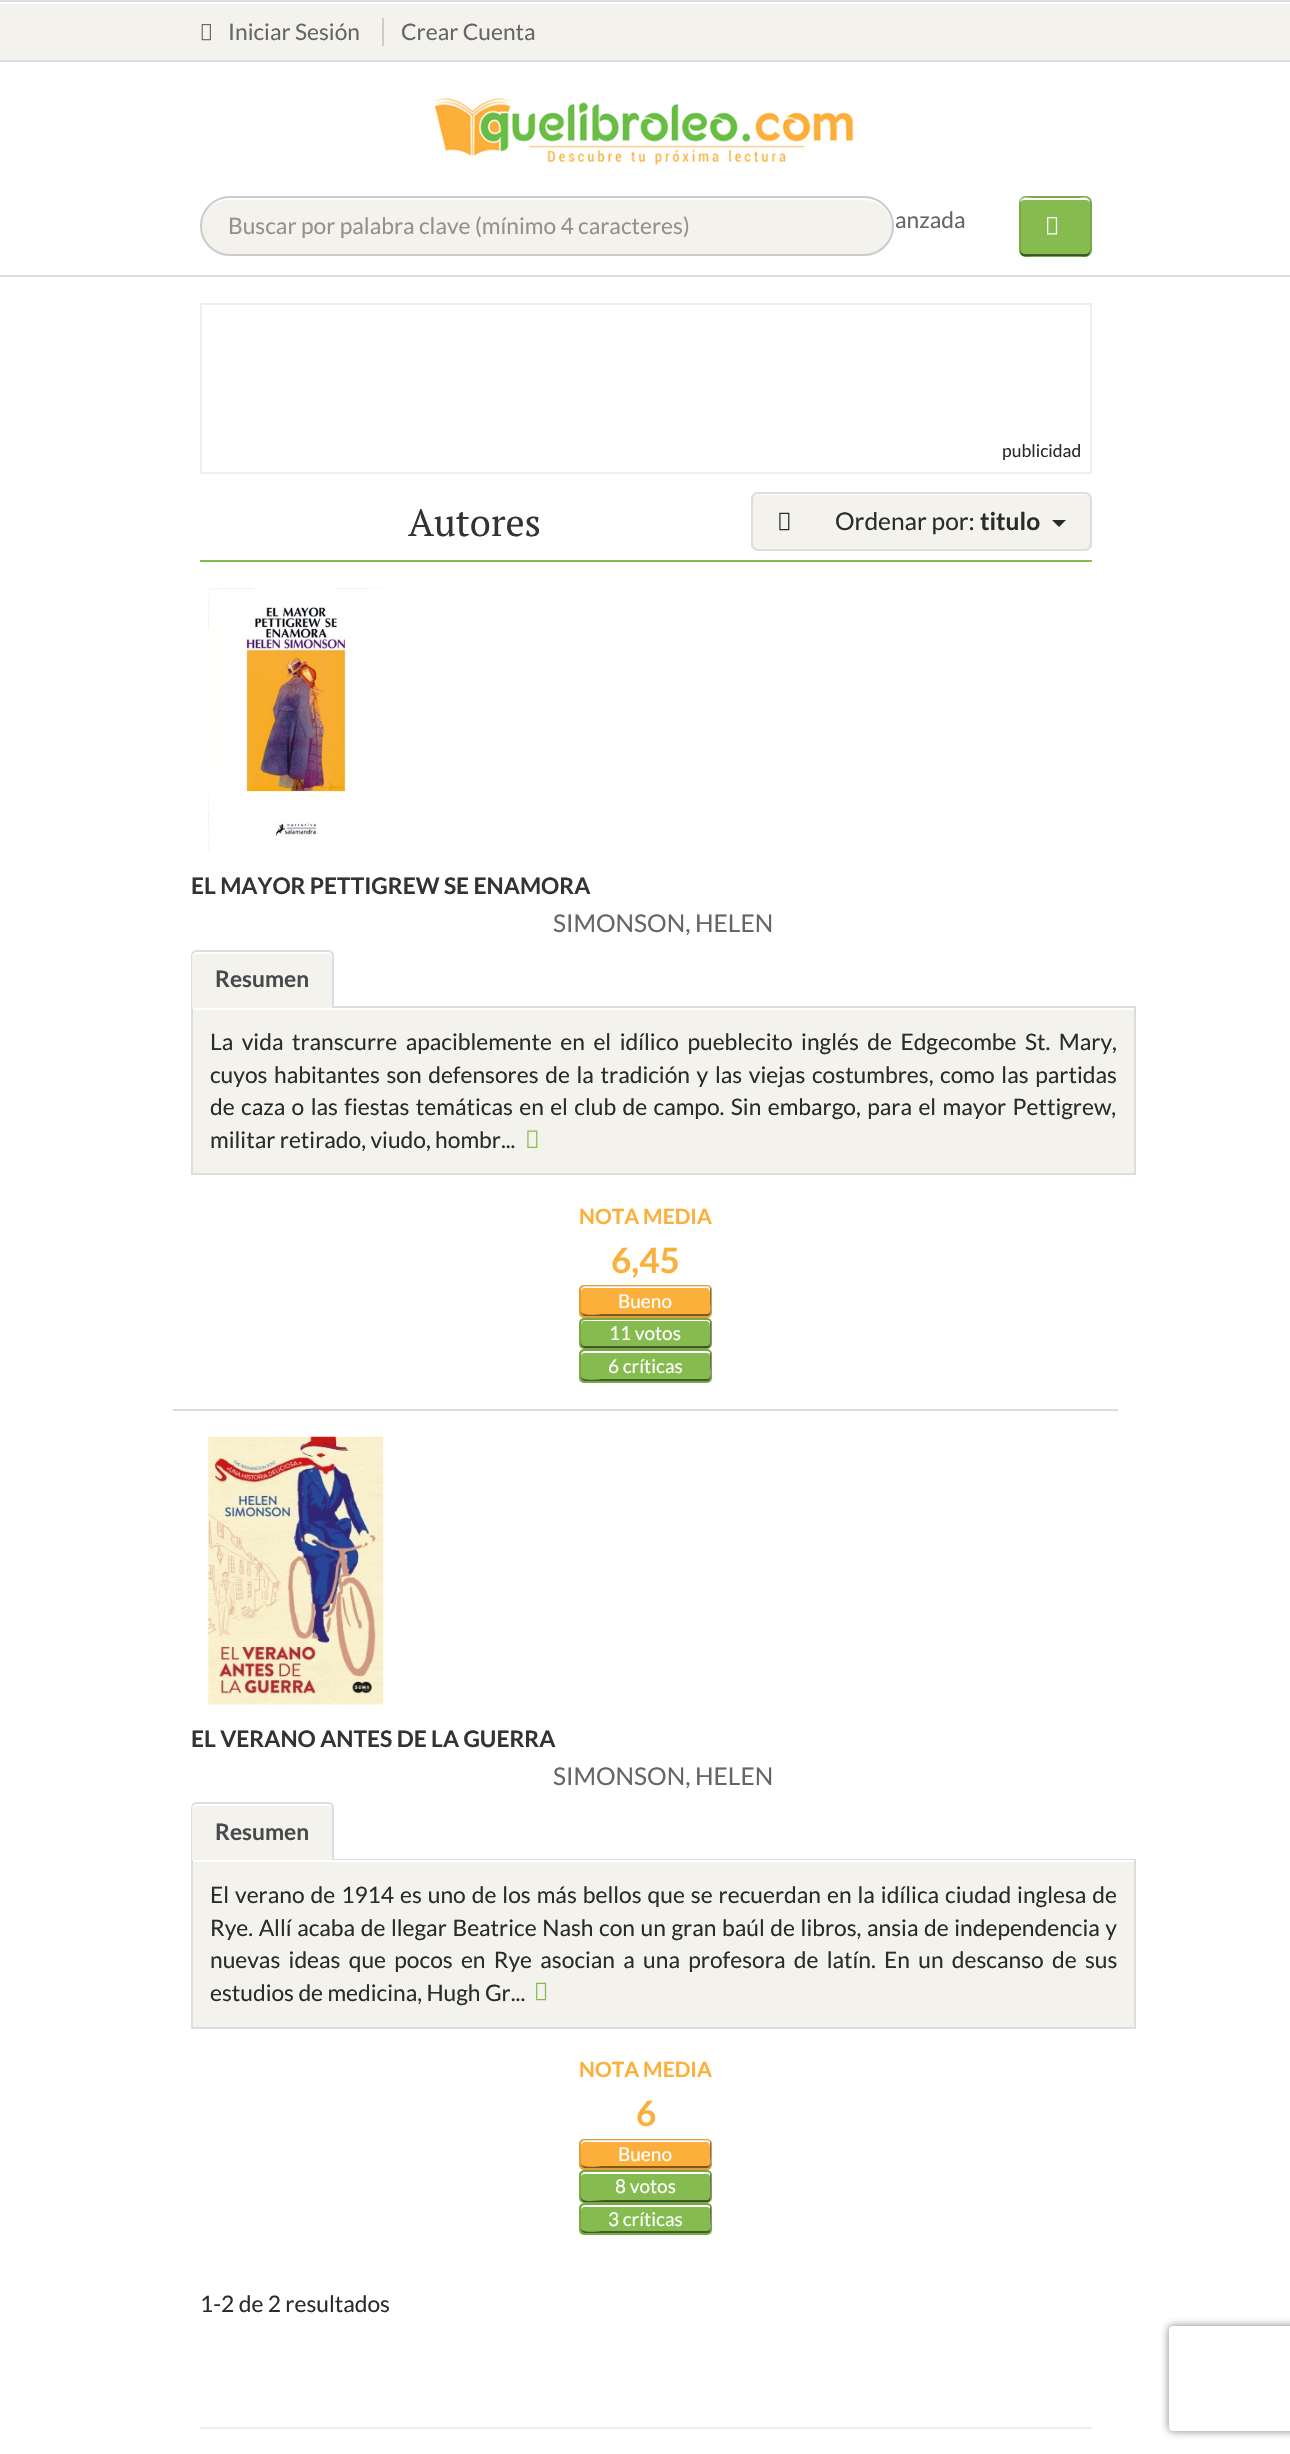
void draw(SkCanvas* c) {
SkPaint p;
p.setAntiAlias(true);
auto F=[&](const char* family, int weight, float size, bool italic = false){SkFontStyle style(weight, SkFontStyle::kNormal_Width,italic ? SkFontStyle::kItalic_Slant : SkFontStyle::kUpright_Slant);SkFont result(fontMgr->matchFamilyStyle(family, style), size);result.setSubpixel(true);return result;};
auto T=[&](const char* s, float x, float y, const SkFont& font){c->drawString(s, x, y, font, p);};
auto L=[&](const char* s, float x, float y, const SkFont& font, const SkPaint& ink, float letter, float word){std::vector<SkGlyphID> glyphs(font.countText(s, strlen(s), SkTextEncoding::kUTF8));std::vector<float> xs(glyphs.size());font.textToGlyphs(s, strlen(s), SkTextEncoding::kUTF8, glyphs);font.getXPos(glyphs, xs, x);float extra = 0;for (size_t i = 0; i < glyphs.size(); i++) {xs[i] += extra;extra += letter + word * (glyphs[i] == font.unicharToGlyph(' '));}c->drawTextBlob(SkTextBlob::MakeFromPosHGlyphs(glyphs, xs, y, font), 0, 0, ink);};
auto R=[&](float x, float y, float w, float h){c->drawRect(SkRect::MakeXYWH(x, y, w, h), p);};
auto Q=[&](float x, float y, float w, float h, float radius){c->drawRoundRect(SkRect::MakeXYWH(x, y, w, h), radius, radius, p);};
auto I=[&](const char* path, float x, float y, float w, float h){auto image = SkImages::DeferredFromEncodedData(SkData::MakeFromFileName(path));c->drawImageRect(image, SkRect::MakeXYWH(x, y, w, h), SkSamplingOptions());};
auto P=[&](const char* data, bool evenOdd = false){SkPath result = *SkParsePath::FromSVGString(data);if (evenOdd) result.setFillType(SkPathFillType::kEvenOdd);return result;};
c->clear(0xffffffff);
p.setColor(0xffdddddd);
R(0,275,1290,2);
p.setColor(0xfff3f2ed);
R(0,4,1290,56);
p.setColor(0xffdddddd);
R(0,0,1290,2);
R(0,60,1290,2);
p.setColor(0xffcccccc);
R(382,18,2,28);
I("1.png",201,24,10,17);
auto f1 = F("Lato",400,22.75);
p.setColor(0xff666666);
T("Iniciar Sesión",228,40,f1);
T("Crear Cuenta",401,40,f1);
I("2.png",434,98,420,68);
p.setColor(0xfff3f2ed);
Q(200,196,694,60,30);
p.setColor(0xffffffff);
c->drawPath(P("M229 200h635c16 0 28 12 28 28c0 4-1 8-2 12c10-19-4-42-25-42h-636c-16 0-29 13-28 29c1-16 13-27 28-27z"),p);
p.setStroke(true);
p.setStrokeWidth(2);
p.setColor(0xffcccccc);
c->drawRoundRect(SkRect::MakeXYWH(201,197,692,58),29,29,p);
p.setStroke(false);
p.setColor(0xff92918e);
T("Buscar por palabra clave (mínimo 4 caracteres)",228,234,f1);
p.setColor(0xff666666);
T("anzada",895,228,f1);
p.setColor(0xff86bb50);
Q(1019,196,73,61,7);
p.setColor(0xffffffff);
c->drawPath(P("M1025 200h61c2 0 4 1 4 4c0-9-7-6-14-6h-42c-7 0-14-3-14 6c0-3 2-4 5-4z"),p);
p.setColor(0x80000000);
c->drawPath(P("M1020 249c0 10 5 7 14 7h42c9 0 14 3 14-7c0 3-2 5-4 5h-61c-3 0-5-2-5-5z"),p);
p.setStroke(true);
p.setColor(0x1a000000);
c->drawRoundRect(SkRect::MakeXYWH(1020,197,71,59),6,6,p);
I("3.png",1047,217,11,18);
p.setColor(0xffeeeeee);
c->drawRect(SkRect::MakeXYWH(201,304,890,169),p);
auto f2 = F("Lato",400,17.5);
p.setStroke(false);
p.setColor(0xff292b2c);
T("publicidad",1002,457,f2);
p.setColor(0xff86bb50);
R(200,560,892,2);
auto f3 = F("PT Serif",400,38);
p.setColor(0xff333333);
T("Autores",408,536,f3);
p.setColor(0xfff3f2ed);
Q(751,492,341,59,7);
p.setColor(0xffffffff);
c->drawPath(P("M757 495h329c2 0 4 2 4 5c0-3 0-6-4-6h-329c-2 0-3 1-4 2c1 0 2-1 4-1z"),p);
p.setStroke(true);
p.setColor(0xffdddddd);
c->drawRoundRect(SkRect::MakeXYWH(752,493,339,57),6,6,p);
I("4.png",779,512,11,19);
auto f4 = F("Lato",400,24.5);
p.setStroke(false);
p.setColor(0xff292b2c);
T("Ordenar por:",835,530,f4);
auto f5 = F("Lato",700,24.5);
T("titulo",980,530,f5);
c->drawPath(P("M1052 520h14l-7 7z"),p);
p.setColor(0xffdddddd);
R(173,1409,945,2);
I("5.png",208,588,175,264);
auto f6 = F("Lato",700,22.75);
p.setColor(0xff333333);
T("EL MAYOR PETTIGREW SE ENAMORA",191,894,f6);
p.setColor(0xff666666);
T("SIMONSON, HELEN",553,932,f4);
p.setColor(0xffdddddd);
R(334,1006,802,2);
p.setColor(0xfff3f2ed);
c->drawPath(P("M198 950h129c4 0 7 3 7 7v51h-143v-51c0-4 3-7 7-7z"),p);
p.setColor(0xffffffff);
c->drawPath(P("M197 954h131c3 0 4 2 4 4v50h1v-52c0-2-2-4-4-4h-132c-2 0-4 2-4 4c1-1 2-2 4-2z"),p);
p.setColor(0xffdddddd);
c->drawPath(P("M197 950h131c4 0 6 3 6 6v52h-143v-52c0-3 2-6 6-6zm0 2h131c3 0 4 2 4 4v52h-140v-52c0-2 2-4 5-4z",true),p);
p.setColor(0xff464a4c);
T("Resumen",215,987,f6);
p.setColor(0xfff3f2ed);
R(193,1010,941,163);
p.setColor(0xffdddddd);
R(1134,1008,2,166);
R(191,1173,945,2);
R(191,1008,2,166);
p.setColor(0xff292b2c);
L("La vida transcurre apaciblemente en el idílico pueblecito inglés de Edgecombe St. Mary,",210,1050,f1,p,0,4.1);
L("cuyos habitantes son defensores de la tradición y las viejas costumbres, como las partidas",210,1083,f1,p,0,2.25);
L("de caza o las fiestas temáticas en el club de campo. Sin embargo, para el mayor Pettigrew,",210,1115,f1,p,0,2);
T("militar retirado, viudo, hombr...",210,1148,f1);
I("6.png",527,1130,11,18);
auto f7 = F("Lato",700,21);
p.setColor(0xfffcb03b);
T("NOTA MEDIA",579,1224,f7);
auto f8 = F("Lato",700,35);
T("6,45",611,1273,f8);
Q(579,1285,133,33,5);
p.setColor(0xffffffff);
c->drawPath(P("M584 1288h123c4 0 3 9 3 11v16c1-1 1-2 1-3v-22c0-2-2-4-4-4h-122c-2 0-4 2-4 4v2c0-2 2-4 3-4z"),p);
p.setColor(0x80000000);
c->drawPath(P("M581 1311v1c0 2 2 4 4 4h122c2 0 4-2 4-4v-22c0-1 0-2-1-3v16c0 3 2 11-3 11h-103c-5 0-23 3-23-3z"),p);
p.setStroke(true);
p.setColor(0x1a000000);
c->drawRoundRect(SkRect::MakeXYWH(580,1286,131,31),4,4,p);
auto f9 = F("Lato",400,19);
p.setStroke(false);
p.setColor(0xffffffff);
T("Bueno",618,1308,f9);
p.setColor(0xff86bb50);
Q(579,1318,133,31,5);
p.setColor(0xffffffff);
c->drawPath(P("M584 1321h123c4 0 3 9 3 11v15c1-1 1-2 1-3v-20c0-2-2-4-4-4h-122c-2 0-4 2-4 4v1c0-2 2-4 3-4z"),p);
p.setColor(0x80000000);
c->drawPath(P("M581 1342v2c0 2 2 4 4 4h122c2 0 4-2 4-4v-20c0-1 0-2-1-3v21c0 2-1 4-3 4h-123c-1 0-3-2-3-4z"),p);
p.setStroke(true);
p.setColor(0x1a000000);
c->drawRoundRect(SkRect::MakeXYWH(580,1319,131,29),4,4,p);
p.setStroke(false);
p.setColor(0xffffffff);
T("11 votos",609,1340,f9);
p.setColor(0xff86bb50);
Q(579,1349,133,34,5);
p.setColor(0xffffffff);
c->drawPath(P("M584 1353h123c5 0 3 8 3 11v16c1-1 1-2 1-3v-22c0-2-2-4-4-4h-122c-2 0-4 2-4 4v1c0-2 2-3 3-3z"),p);
p.setColor(0x80000000);
c->drawPath(P("M581 1376v1c0 2 2 4 4 4h122c2 0 4-2 4-4v-22c0-1 0-2-1-3v16c0 3 2 11-3 11h-103c-4 0-23 3-23-3z"),p);
p.setStroke(true);
p.setColor(0x1a000000);
c->drawRoundRect(SkRect::MakeXYWH(580,1350,131,32),4,4,p);
p.setStroke(false);
p.setColor(0xffffffff);
T("6 críticas",608,1373,f9);
I("7.png",208,1436,176,269);
p.setColor(0xff333333);
T("EL VERANO ANTES DE LA GUERRA",191,1747,f6);
p.setColor(0xff666666);
T("SIMONSON, HELEN",553,1785,f4);
p.setColor(0xffdddddd);
R(334,1859,802,1);
p.setColor(0xfff3f2ed);
c->drawPath(P("M198 1803h129c4 0 7 3 7 7v50h-143v-50c0-4 3-7 7-7z"),p);
p.setColor(0xffffffff);
c->drawPath(P("M197 1806h131c3 0 4 2 4 4v50h1v-52c0-2-2-4-4-4h-132c-2 0-4 2-4 4c1-1 2-2 4-2z"),p);
p.setColor(0xffdddddd);
c->drawPath(P("M197 1802h131c4 0 6 3 6 7v51h-143v-51c0-4 2-7 6-7zm0 2h131c3 0 4 2 4 5v51h-140v-51c0-3 2-5 5-5z",true),p);
p.setColor(0xff464a4c);
T("Resumen",215,1840,f6);
p.setColor(0xfff3f2ed);
R(193,1862,941,165);
p.setColor(0xffdddddd);
R(1134,1860,2,168);
R(191,2027,945,2);
R(191,1860,2,168);
p.setColor(0xff292b2c);
L("El verano de 1914 es uno de los más bellos que se recuerdan en la idílica ciudad inglesa de",210,1903,f1,p,0,1.6);
L("Rye. Allí acaba de llegar Beatrice Nash con un gran baúl de libros, ansia de independencia y",210,1936,f1,p,0,1.2);
L("nuevas ideas que pocos en Rye asocian a una profesora de latín. En un descanso de sus",210,1968,f1,p,0,3.9);
T("estudios de medicina, Hugh Gr...",210,2001,f1);
I("8.png",536,1982,11,19);
p.setColor(0xfffcb03b);
T("NOTA MEDIA",579,2077,f7);
T("6",636,2126,f8);
Q(579,2139,133,31,5);
p.setColor(0xffffffff);
c->drawPath(P("M584 2142h123c4 0 3 9 3 11v14c1-1 1-2 1-3v-20c0-2-2-4-4-4h-122c-2 0-4 2-4 4v2c0-2 2-4 3-4z"),p);
p.setColor(0x80000000);
c->drawPath(P("M581 2163v1c0 2 2 4 4 4h122c2 0 4-2 4-4v-20c0-1 0-2-1-3v15c0 3 2 10-3 10h-103c-5 0-23 3-23-3z"),p);
p.setStroke(true);
p.setColor(0x1a000000);
c->drawRoundRect(SkRect::MakeXYWH(580,2140,131,29),4,4,p);
p.setStroke(false);
p.setColor(0xffffffff);
T("Bueno",618,2161,f9);
p.setColor(0xff86bb50);
Q(579,2170,133,33,5);
p.setColor(0xffffffff);
c->drawPath(P("M584 2174h123c5 0 3 8 3 11v16c1-1 1-2 1-3v-22c0-2-2-4-4-4h-122c-2 0-4 2-4 4v1c0-2 2-3 3-3z"),p);
p.setColor(0x80000000);
c->drawPath(P("M581 2196v2c0 2 2 4 4 4h122c2 0 4-2 4-4v-22c0-1 0-2-1-3v19c0 2 1 8-3 8h-103c-7 0-23 4-23-4z"),p);
p.setStroke(true);
p.setColor(0x1a000000);
c->drawRoundRect(SkRect::MakeXYWH(580,2171,131,31),4,4,p);
p.setStroke(false);
p.setColor(0xffffffff);
T("8 votos",615,2193,f9);
p.setColor(0xff86bb50);
Q(579,2203,133,32,5);
p.setColor(0xffffffff);
c->drawPath(P("M584 2207h123c5 0 3 7 3 10v15c1-1 1-2 1-3v-20c0-2-2-4-4-4h-122c-2 0-4 2-4 4v1c0-2 2-3 3-3z"),p);
p.setColor(0x80000000);
c->drawPath(P("M581 2228v1c0 2 2 4 4 4h122c2 0 4-2 4-4v-20c0-1 0-2-1-3v15c0 3 2 10-3 10h-103c-5 0-23 3-23-3z"),p);
p.setStroke(true);
p.setColor(0x1a000000);
c->drawRoundRect(SkRect::MakeXYWH(580,2204,131,30),4,4,p);
p.setStroke(false);
p.setColor(0xffffffff);
T("3 críticas",608,2226,f9);
p.setColor(0xff292b2c);
T("1-2 de 2 resultados",200,2312,f1);
p.setColor(0xffeeeeee);
R(200,2427,892,2);
c->save();
c->clipPath(P("M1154 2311h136v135h-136zm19 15h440c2 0 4 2 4 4v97c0 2-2 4-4 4h-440c-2 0-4-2-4-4v-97c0-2 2-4 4-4z",true),true);
p.setColor(0xff808080);
p.setMaskFilter(SkMaskFilter::MakeBlur(kNormal_SkBlurStyle, 4.5));
c->drawRoundRect(SkRect::MakeXYWH(1169,2326,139,105),4,4,p);
p.setMaskFilter(nullptr);
c->restore();
}
